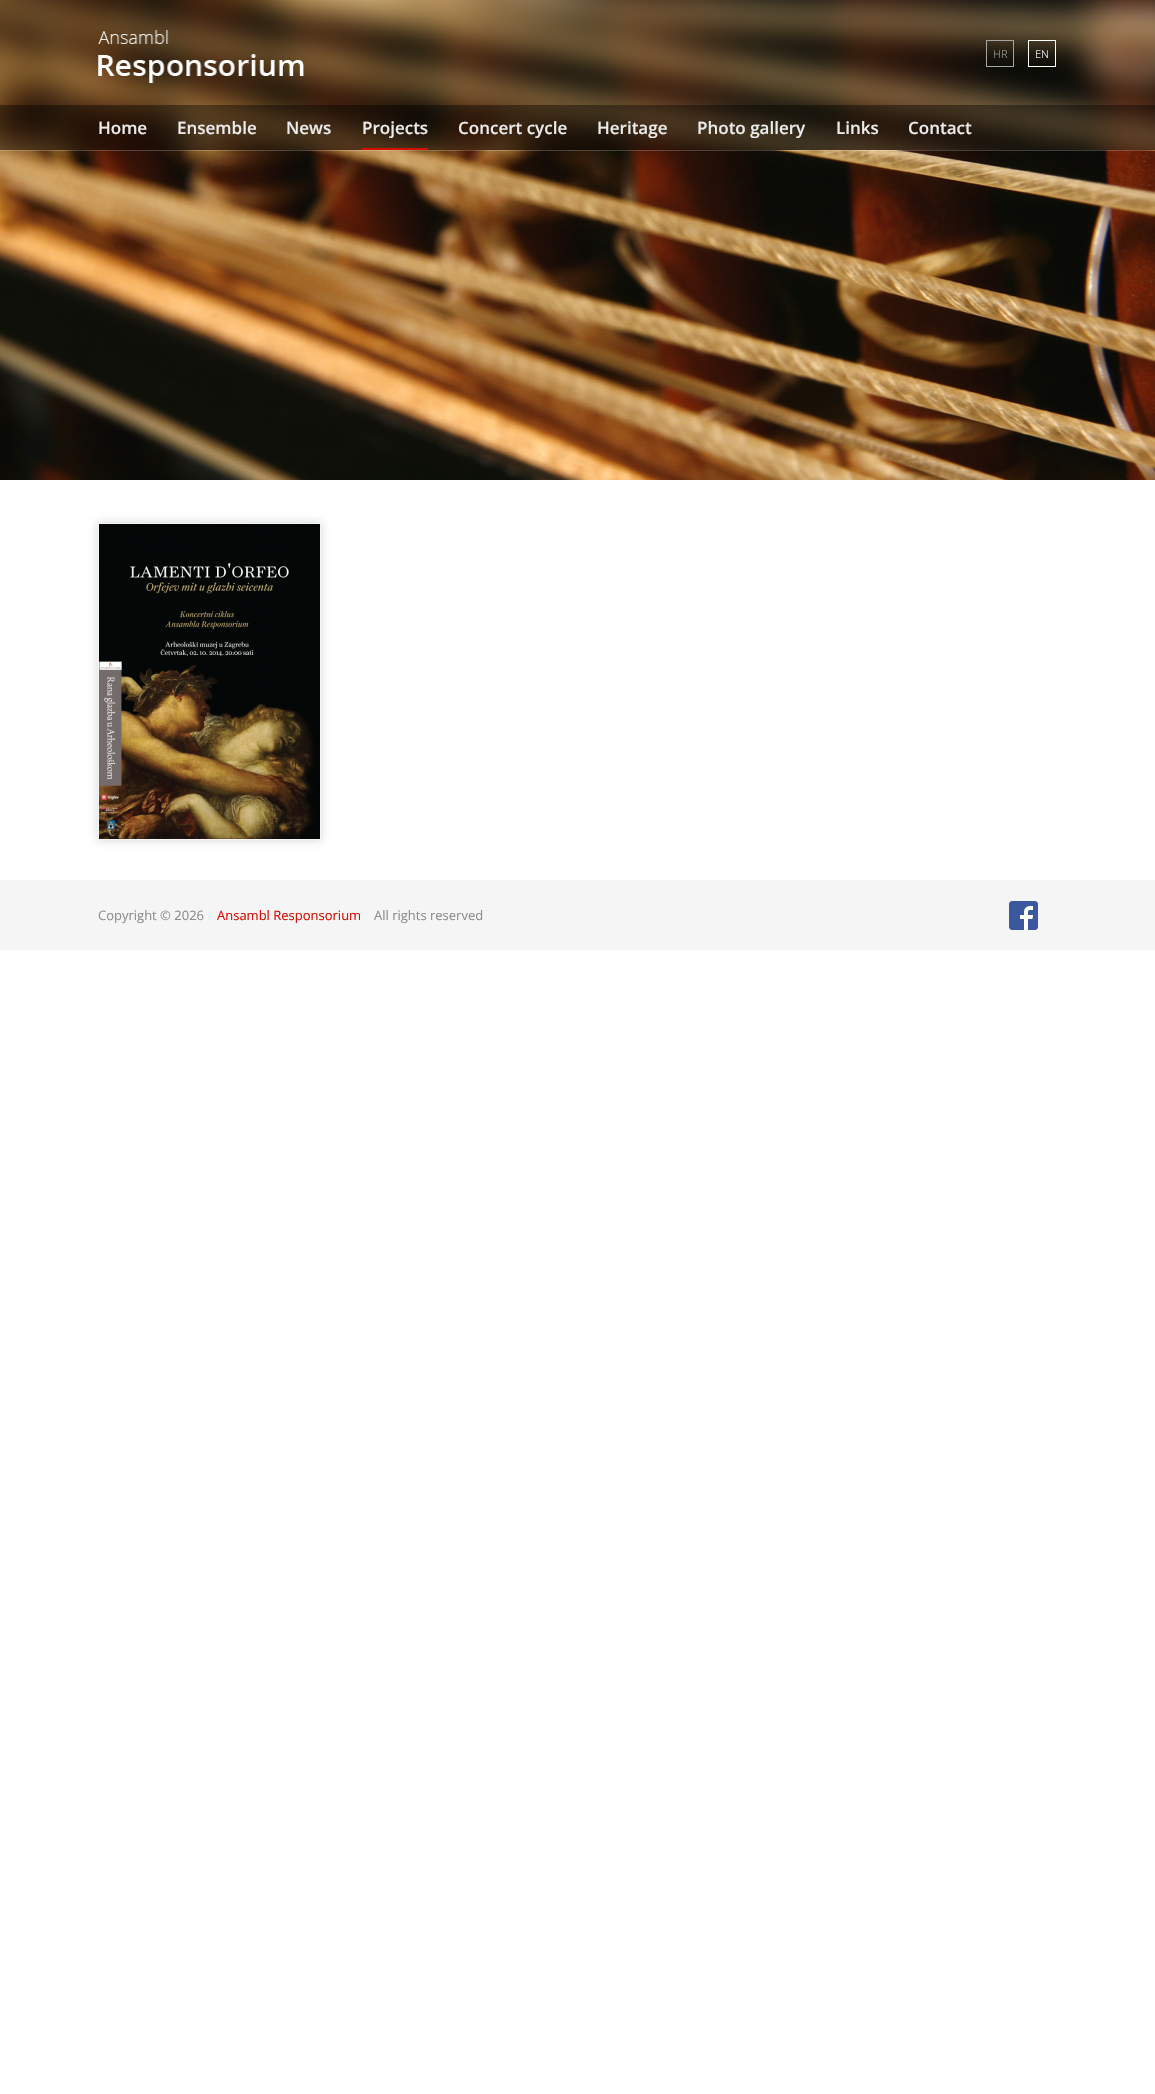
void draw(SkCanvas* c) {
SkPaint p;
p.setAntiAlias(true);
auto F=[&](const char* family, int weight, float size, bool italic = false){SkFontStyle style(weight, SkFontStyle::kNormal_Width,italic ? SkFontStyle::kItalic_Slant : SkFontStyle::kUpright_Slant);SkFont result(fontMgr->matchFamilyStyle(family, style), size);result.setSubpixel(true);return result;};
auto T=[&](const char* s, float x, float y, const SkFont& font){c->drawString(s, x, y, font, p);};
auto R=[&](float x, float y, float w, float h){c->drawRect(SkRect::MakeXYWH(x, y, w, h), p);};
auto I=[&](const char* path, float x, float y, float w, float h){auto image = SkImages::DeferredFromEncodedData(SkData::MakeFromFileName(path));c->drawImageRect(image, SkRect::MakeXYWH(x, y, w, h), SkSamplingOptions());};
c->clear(0xffffffff);
I("1.png",0,0,1155,480);
I("2.png",98,30,206,53);
p.setStroke(true);
p.setStrokeWidth(1);
p.setColor(0xffa5a5a5);
c->drawRect(SkRect::MakeXYWH(986.5,40.5,27,26),p);
auto f1 = F("Open Sans",300,11);
p.setStroke(false);
T("HR",993,58,f1);
p.setStroke(true);
p.setColor(0xffffffff);
c->drawRect(SkRect::MakeXYWH(1028.5,40.5,27,26),p);
p.setStroke(false);
T("EN",1035,58,f1);
auto f2 = F("Open Sans",600,17);
p.setColor(0xffebebeb);
T("Home",98,134,f2);
T("Ensemble",177,134,f2);
T("News",286,134,f2);
p.setColor(0xffd70f00);
R(362,148,66,2);
p.setColor(0xffebebeb);
T("Projects",362,134,f2);
T("Concert cycle",458,134,f2);
T("Heritage",597,134,f2);
T("Photo gallery",697,134,f2);
T("Links",836,134,f2);
T("Contact",908,134,f2);
p.setColor(0xffdddddd);
p.setMaskFilter(SkMaskFilter::MakeBlur(kNormal_SkBlurStyle, 4));
c->drawRect(SkRect::MakeXYWH(97,522,225,319),p);
p.setMaskFilter(nullptr);
p.setStroke(true);
p.setColor(0xfff5f5f5);
c->drawRect(SkRect::MakeXYWH(98.5,523.5,222,316),p);
I("3.png",99,524,221,315);
p.setStroke(false);
R(0,880,1155,70);
auto f3 = F("Open Sans",400,13);
p.setColor(0xff8d8d8d);
T("Copyright © 2026",98,920,f3);
p.setColor(0xffd70f00);
T("Ansambl Responsorium",217,920,f3);
p.setColor(0xff8d8d8d);
T("All rights reserved",374,920,f3);
I("4.png",1009,901,29,29);
}
